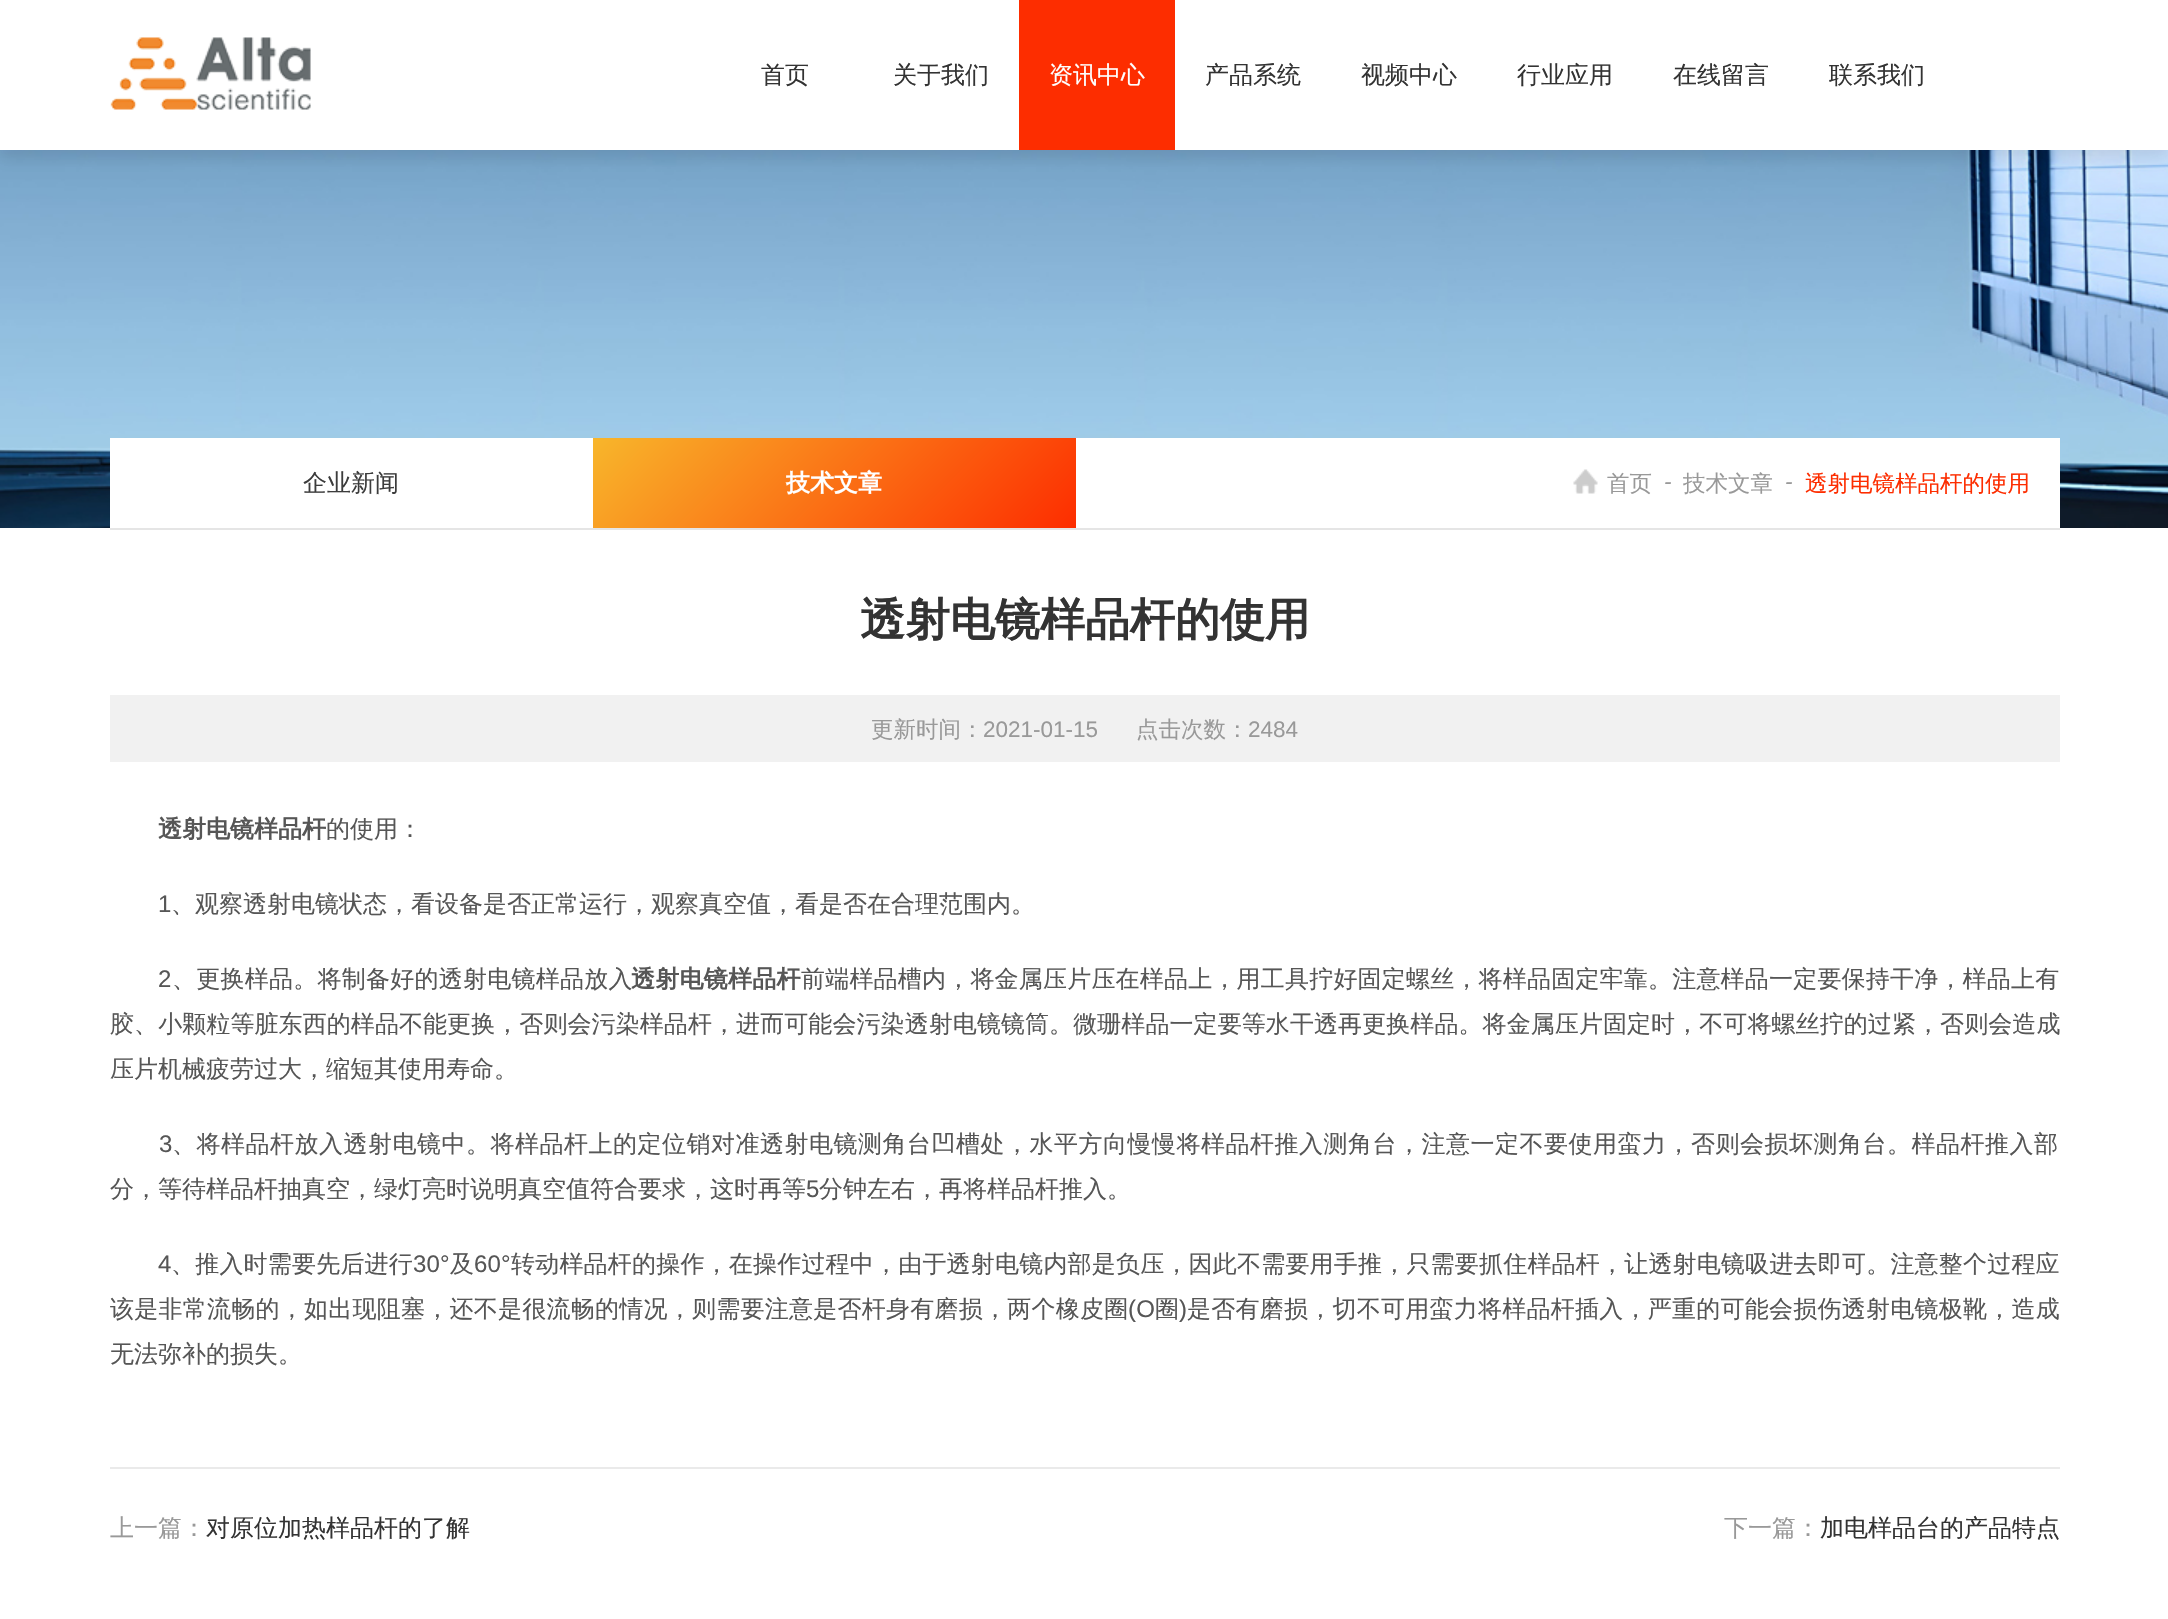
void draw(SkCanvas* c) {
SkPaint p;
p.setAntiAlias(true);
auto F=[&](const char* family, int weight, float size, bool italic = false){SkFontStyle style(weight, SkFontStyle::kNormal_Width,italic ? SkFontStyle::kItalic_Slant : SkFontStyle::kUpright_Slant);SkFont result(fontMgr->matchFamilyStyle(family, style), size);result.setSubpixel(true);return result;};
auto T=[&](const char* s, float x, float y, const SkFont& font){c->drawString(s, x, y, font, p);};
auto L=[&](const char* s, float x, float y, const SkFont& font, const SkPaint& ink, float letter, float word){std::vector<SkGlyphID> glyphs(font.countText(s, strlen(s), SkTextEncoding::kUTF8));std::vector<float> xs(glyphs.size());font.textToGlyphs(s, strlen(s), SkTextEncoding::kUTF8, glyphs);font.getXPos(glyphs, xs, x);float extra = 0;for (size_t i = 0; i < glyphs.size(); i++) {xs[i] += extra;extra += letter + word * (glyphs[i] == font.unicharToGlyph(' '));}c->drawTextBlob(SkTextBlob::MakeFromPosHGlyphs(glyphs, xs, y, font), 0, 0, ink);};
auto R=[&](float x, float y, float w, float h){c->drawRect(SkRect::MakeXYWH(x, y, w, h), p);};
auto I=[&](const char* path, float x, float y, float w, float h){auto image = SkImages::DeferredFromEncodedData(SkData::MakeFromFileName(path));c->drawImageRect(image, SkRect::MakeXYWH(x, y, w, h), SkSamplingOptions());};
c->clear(0xffffffff);
I("2.png",0,150,2168,378);
p.setColor(0x1a000000);
p.setMaskFilter(SkMaskFilter::MakeBlur(kNormal_SkBlurStyle, 7.5));
c->drawRect(SkRect::MakeXYWH(0,8,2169,150),p);
p.setMaskFilter(nullptr);
p.setColor(0xffffffff);
R(0,0,2168,150);
I("1.png",110,37,201,73);
auto f1 = F("WenQuanYi Zen Hei",500,24);
p.setColor(0xff333333);
T("首页",761,83,f1);
T("关于我们",893,83,f1);
p.setColor(0xfffd2d00);
R(1019,0,156,150);
p.setColor(0xffffffff);
T("资讯中心",1049,83,f1);
p.setColor(0xff333333);
T("产品系统",1205,83,f1);
T("视频中心",1361,83,f1);
T("行业应用",1517,83,f1);
T("在线留言",1673,83,f1);
T("联系我们",1829,83,f1);
p.setColor(0xffffffff);
R(110,438,1950,90);
p.setColor(0xffe5e5e5);
R(110,528,1950,2);
p.setColor(0xff3c3c3c);
T("企业新闻",303,491,f1);
{
const SkColor colors[] = {0xfff8b62b,0xfffd2d00};
const float stops[] = {0,1};
const SkPoint ends[] = {{691,340}, {977,626}};
p.setShader(SkGradientShader::MakeLinear(ends, colors, stops, 2, SkTileMode::kClamp));
p.setAlpha(255);
}
R(593,438,483,90);
auto f2 = F("WenQuanYi Zen Hei",700,24);
p.setShader(nullptr);
p.setColor(0xffffffff);
T("技术文章",786,491,f2);
I("3.png",1573,469,25,25);
auto f3 = F("WenQuanYi Zen Hei",500,22.5);
p.setColor(0xff999999);
T("首页",1607,491,f3);
auto f4 = F("Liberation Sans",400,22.5,true);
T("-",1664,489,f4);
T("技术文章",1683,491,f3);
T("-",1785,489,f4);
p.setColor(0xfffd2d00);
T("透射电镜样品杆的使用",1805,491,f3);
auto f5 = F("WenQuanYi Zen Hei",700,45);
p.setColor(0xff333333);
T("透射电镜样品杆的使用",860,635,f5);
p.setColor(0xfff1f1f1);
R(110,695,1950,67);
p.setColor(0xff999999);
T("更新时间：",871,737,f3);
auto f6 = F("Liberation Sans",400,22.5);
T("2021-01-15",983,737,f6);
T("点击次数：",1136,737,f3);
T("2484",1248,737,f6);
p.setColor(0xff565656);
T("透射电镜样品杆",158,837,f2);
T("的使用：",326,837,f1);
auto f7 = F("Liberation Sans",400,24);
T("1",158,912,f7);
T("、观察透射电镜状态，看设备是否正常运行，观察真空值，看是否在合理范围内。",171,912,f1);
L("2",158,987,f7,p,.25,0);
L("、更换样品。将制备好的透射电镜样品放入",172,987,f1,p,.25,0);
L("透射电镜样品杆",631,987,f2,p,.25,0);
L("前端样品槽内，将金属压片压在样品上，用工具拧好固定螺丝，将样品固定牢靠。注意样品一定要保持干净，样品上有",801,987,f1,p,.2,0);
L("胶、小颗粒等脏东西的样品不能更换，否则会污染样品杆，进而可能会污染透射电镜镜筒。微珊样品一定要等水干透再更换样品。将金属压片固定时，不可将螺丝拧的过紧，否则会造成",110,1032,f1,p,.08,0);
T("压片机械疲劳过大，缩短其使用寿命。",110,1077,f1);
L("3",159,1152,f7,p,.5,0);
L("、将样品杆放入透射电镜中。将样品杆上的定位销对准透射电镜测角台凹槽处，水平方向慢慢将样品杆推入测角台，注意一定不要使用蛮力，否则会损坏测角台。样品杆推入部",172,1152,f1,p,.5,0);
T("分，等待样品杆抽真空，绿灯亮时说明真空值符合要求，这时再等",110,1197,f1);
T("5",806,1197,f7);
T("分钟左右，再将样品杆推入。",819,1197,f1);
L("4",158,1272,f7,p,.2,0);
L("、推入时需要先后进行",171,1272,f1,p,.2,0);
L("30°",413,1272,f7,p,.2,0);
L("及",450,1272,f1,p,.2,0);
L("60°",474,1272,f7,p,.2,0);
L("转动样品杆的操作，在操作过程中，由于透射电镜内部是负压，因此不需要用手推，只需要抓住样品杆，让透射电镜吸进去即可。注意整个过程应",511,1272,f1,p,.2,0);
L("该是非常流畅的，如出现阻塞，还不是很流畅的情况，则需要注意是否杆身有磨损，两个橡皮圈",110,1317,f1,p,.25,0);
L("(O",1128,1317,f7,p,.25,0);
L("圈",1155,1317,f1,p,.25,0);
L(")",1179,1317,f7,p,.25,0);
L("是否有磨损，切不可用蛮力将样品杆插入，严重的可能会损伤透射电镜极靴，造成",1187,1317,f1,p,.25,0);
T("无法弥补的损失。",110,1362,f1);
p.setColor(0xffeaeaea);
R(110,1467,1950,2);
p.setColor(0xff999999);
T("上一篇：",110,1536,f1);
p.setColor(0xff333333);
T("对原位加热样品杆的了解",206,1536,f1);
p.setColor(0xff999999);
T("下一篇：",1724,1536,f1);
p.setColor(0xff333333);
T("加电样品台的产品特点",1820,1536,f1);
}
